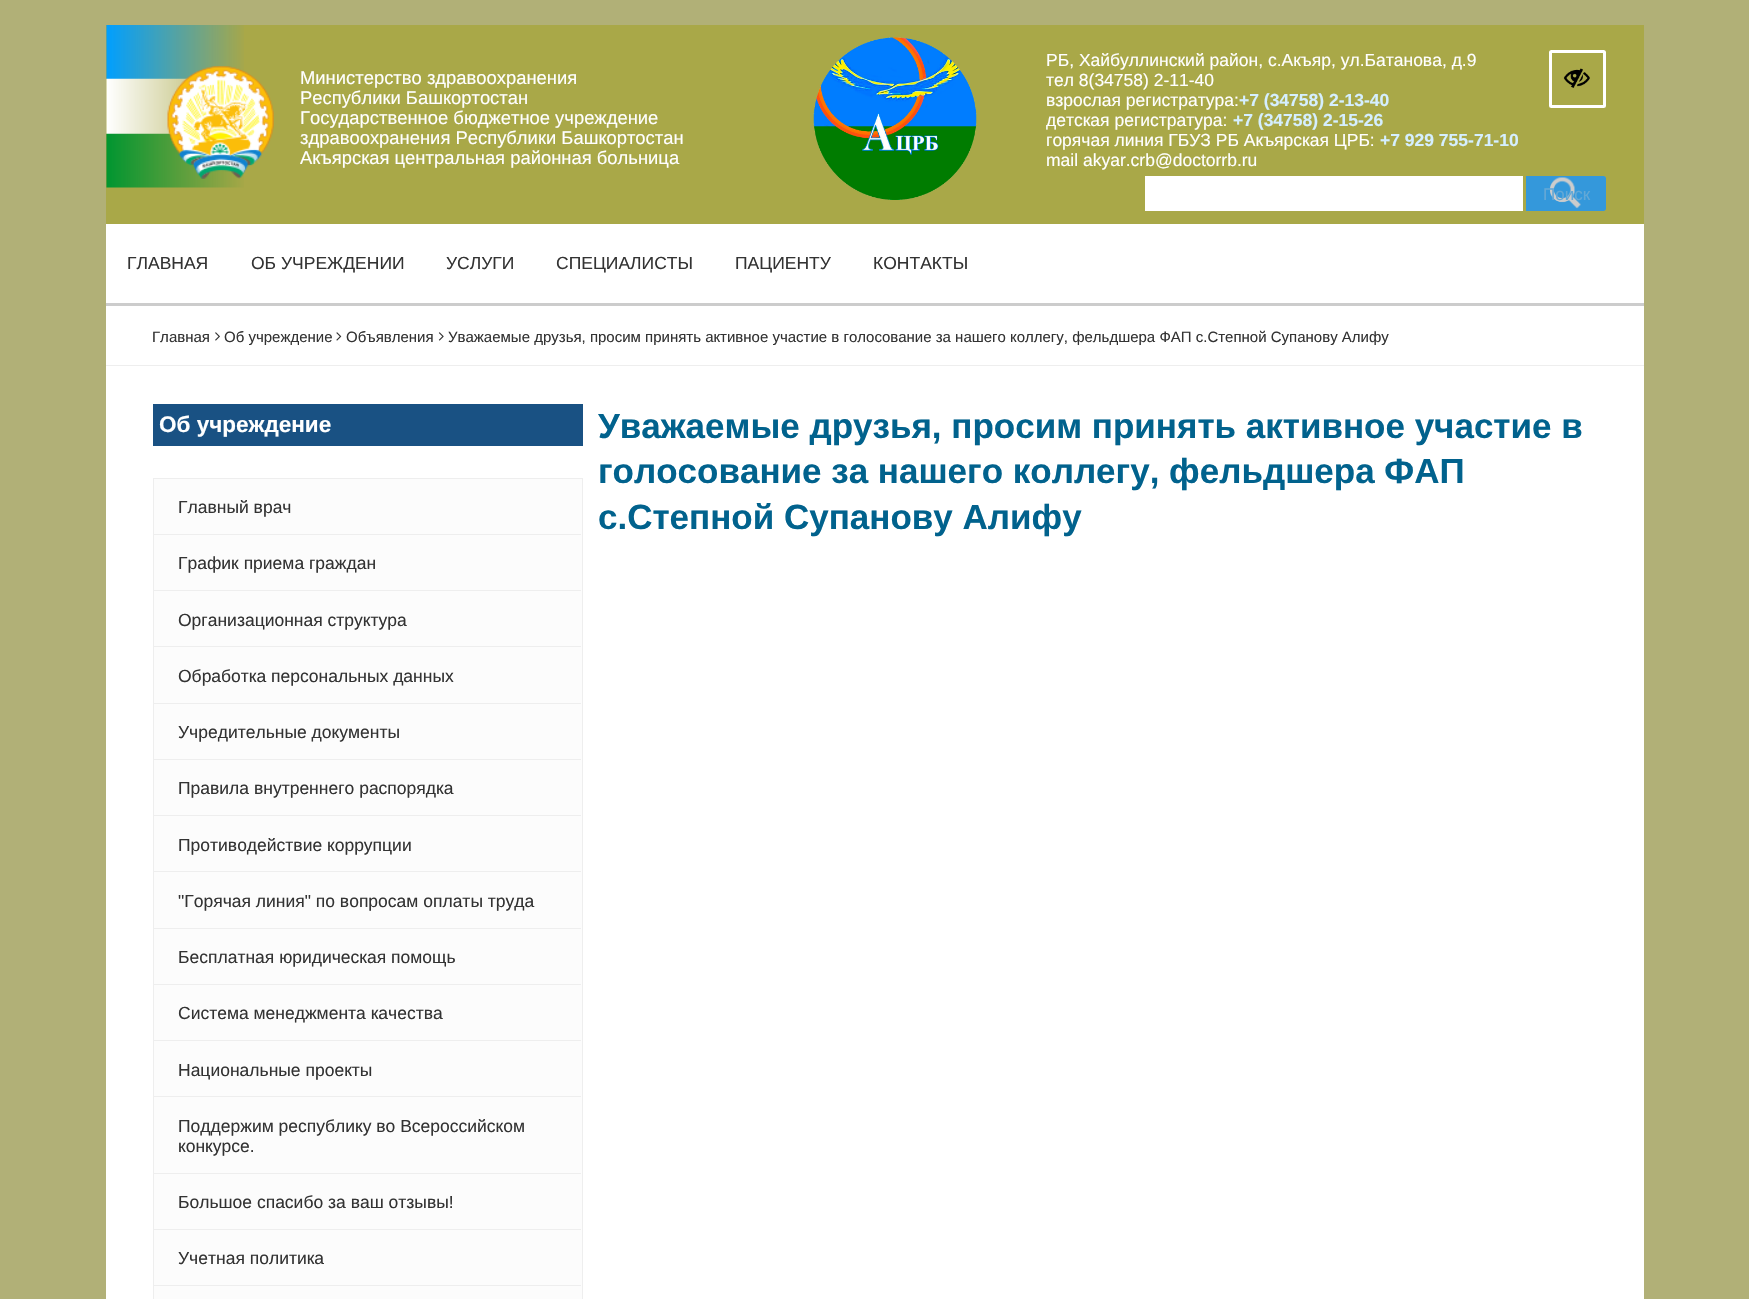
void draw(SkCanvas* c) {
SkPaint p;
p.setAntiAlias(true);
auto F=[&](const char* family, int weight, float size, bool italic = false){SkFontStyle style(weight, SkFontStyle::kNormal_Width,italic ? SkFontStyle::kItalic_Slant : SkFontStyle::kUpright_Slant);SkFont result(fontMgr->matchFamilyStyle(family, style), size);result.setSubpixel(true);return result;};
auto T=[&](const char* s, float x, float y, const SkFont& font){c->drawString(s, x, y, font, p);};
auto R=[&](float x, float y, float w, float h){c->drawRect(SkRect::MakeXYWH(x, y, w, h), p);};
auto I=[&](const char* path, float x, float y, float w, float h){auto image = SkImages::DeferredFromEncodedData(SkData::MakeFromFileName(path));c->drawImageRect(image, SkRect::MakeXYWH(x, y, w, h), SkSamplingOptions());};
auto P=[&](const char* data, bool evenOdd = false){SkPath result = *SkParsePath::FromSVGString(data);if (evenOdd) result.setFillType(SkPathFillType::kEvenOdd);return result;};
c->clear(0xffb1b077);
p.setColor(0xffffffff);
R(106,224,1538,1075);
p.setColor(0xffa9a848);
R(106,25,1538,199);
I("1.png",106,25,138,163);
I("2.png",167,66,107,113);
auto f1 = F("Liberation Sans",400,18.4);
p.setColor(0xffffffff);
T("Министерство здравоохранения",300,84,f1);
T("Республики Башкортостан",300,104,f1);
T("Государственное бюджетное учреждение",300,124,f1);
T("здравоохранения Республики Башкортостан",300,144,f1);
T("Акъярская центральная районная больница",300,164,f1);
I("3.png",813,37,164,163);
auto f2 = F("Liberation Sans",400,17.5);
T("РБ, Хайбуллинский район, с.Акъяр, ул.Батанова, д.9",1046,66,f2);
I("4.png",1563,68,27,20);
p.setStroke(true);
p.setStrokeWidth(3);
c->drawRoundRect(SkRect::MakeXYWH(1550.5,51.5,54,55),1,1,p);
p.setStroke(false);
T("тел 8(34758) 2-11-40",1046,86,f2);
T("взрослая регистратура:",1046,106,f2);
auto f3 = F("Liberation Sans",700,17.5);
p.setColor(0xffd5efff);
T("+7 (34758) 2-13-40",1239,106,f3);
p.setColor(0xffffffff);
T("детская регистратура:",1046,126,f2);
p.setColor(0xffd5efff);
T("+7 (34758) 2-15-26",1233,126,f3);
p.setColor(0xffffffff);
T("горячая линия ГБУЗ РБ Акъярская ЦРБ:",1046,146,f2);
p.setColor(0xffd5efff);
T("+7 929 755-71-10",1380,146,f3);
p.setColor(0xffffffff);
T("mail akyar.crb@doctorrb.ru",1046,166,f2);
R(1145,176,378,35);
p.setColor(0xff3498db);
c->drawPath(P("M1526 176h77.5c1.5 0 2.5 1 2.5 2.5v30c0 1.5-1 2.5-2.5 2.5h-77.5z"),p);
I("5.png",1550,177,31,32);
auto f4 = F("Liberation Sans",400,17);
p.setColor(0xff63a8d6);
T("Поиск",1543,200,f4);
p.setColor(0xffcccccc);
R(106,303,1538,3);
p.setColor(0xff333333);
T("ГЛАВНАЯ",127,269,f2);
T("ОБ УЧРЕЖДЕНИИ",251,269,f2);
T("УСЛУГИ",446,269,f2);
T("СПЕЦИАЛИСТЫ",556,269,f2);
T("ПАЦИЕНТУ",735,269,f2);
T("КОНТАКТЫ",873,269,f2);
p.setColor(0xffeeeeee);
R(106,365,1538,1);
auto f5 = F("Liberation Sans",400,15);
p.setColor(0xff333333);
T("Главная",152,342,f5);
I("6.png",215,332,5,9);
T("Об учреждение",224,342,f5);
I("7.png",336,332,6,9);
T("Объявления",346,342,f5);
I("8.png",438,332,6,9);
T("Уважаемые друзья, просим принять активное участие в голосование за нашего коллегу, фельдшера ФАП с.Степной Супанову Алифу",448,342,f5);
p.setColor(0xff195183);
R(153,404,430,42);
auto f6 = F("Liberation Sans",700,22.5);
p.setColor(0xffffffff);
T("Об учреждение",159,432,f6);
p.setColor(0xfffcfcfc);
c->drawRect(SkRect::MakeXYWH(153.5,478.5,429,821),p);
p.setStroke(true);
p.setStrokeWidth(1);
p.setColor(0xffeeeeee);
c->drawRect(SkRect::MakeXYWH(153.5,478.5,429,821),p);
p.setStroke(false);
R(154,534,427,1);
p.setColor(0xff333333);
T("Главный врач",178,513,f2);
p.setColor(0xffeeeeee);
R(154,590,427,1);
p.setColor(0xff333333);
T("График приема граждан",178,569,f2);
p.setColor(0xffeeeeee);
R(154,646,427,1);
p.setColor(0xff333333);
T("Организационная структура",178,626,f2);
p.setColor(0xffeeeeee);
R(154,703,427,1);
p.setColor(0xff333333);
T("Обработка персональных данных",178,682,f2);
p.setColor(0xffeeeeee);
R(154,759,427,1);
p.setColor(0xff333333);
T("Учредительные документы",178,738,f2);
p.setColor(0xffeeeeee);
R(154,815,427,1);
p.setColor(0xff333333);
T("Правила внутреннего распорядка",178,794,f2);
p.setColor(0xffeeeeee);
R(154,871,427,1);
p.setColor(0xff333333);
T("Противодействие коррупции",178,851,f2);
p.setColor(0xffeeeeee);
R(154,928,427,1);
p.setColor(0xff333333);
T("\"Горячая линия\" по вопросам оплаты труда",178,907,f2);
p.setColor(0xffeeeeee);
R(154,984,427,1);
p.setColor(0xff333333);
T("Бесплатная юридическая помощь",178,963,f2);
p.setColor(0xffeeeeee);
R(154,1040,427,1);
p.setColor(0xff333333);
T("Система менеджмента качества",178,1019,f2);
p.setColor(0xffeeeeee);
R(154,1096,427,1);
p.setColor(0xff333333);
T("Национальные проекты",178,1076,f2);
p.setColor(0xffeeeeee);
R(154,1173,427,1);
p.setColor(0xff333333);
T("Поддержим республику во Всероссийском",178,1132,f2);
T("конкурсе.",178,1152,f2);
p.setColor(0xffeeeeee);
R(154,1229,427,1);
p.setColor(0xff333333);
T("Большое спасибо за ваш отзывы!",178,1208,f2);
p.setColor(0xffeeeeee);
R(154,1285,427,1);
p.setColor(0xff333333);
T("Учетная политика",178,1264,f2);
auto f7 = F("Liberation Sans",700,35);
p.setColor(0xff01628d);
T("Уважаемые друзья, просим принять активное участие в",598,438,f7);
T("голосование за нашего коллегу, фельдшера ФАП",598,483,f7);
T("с.Степной Супанову Алифу",598,529,f7);
}
